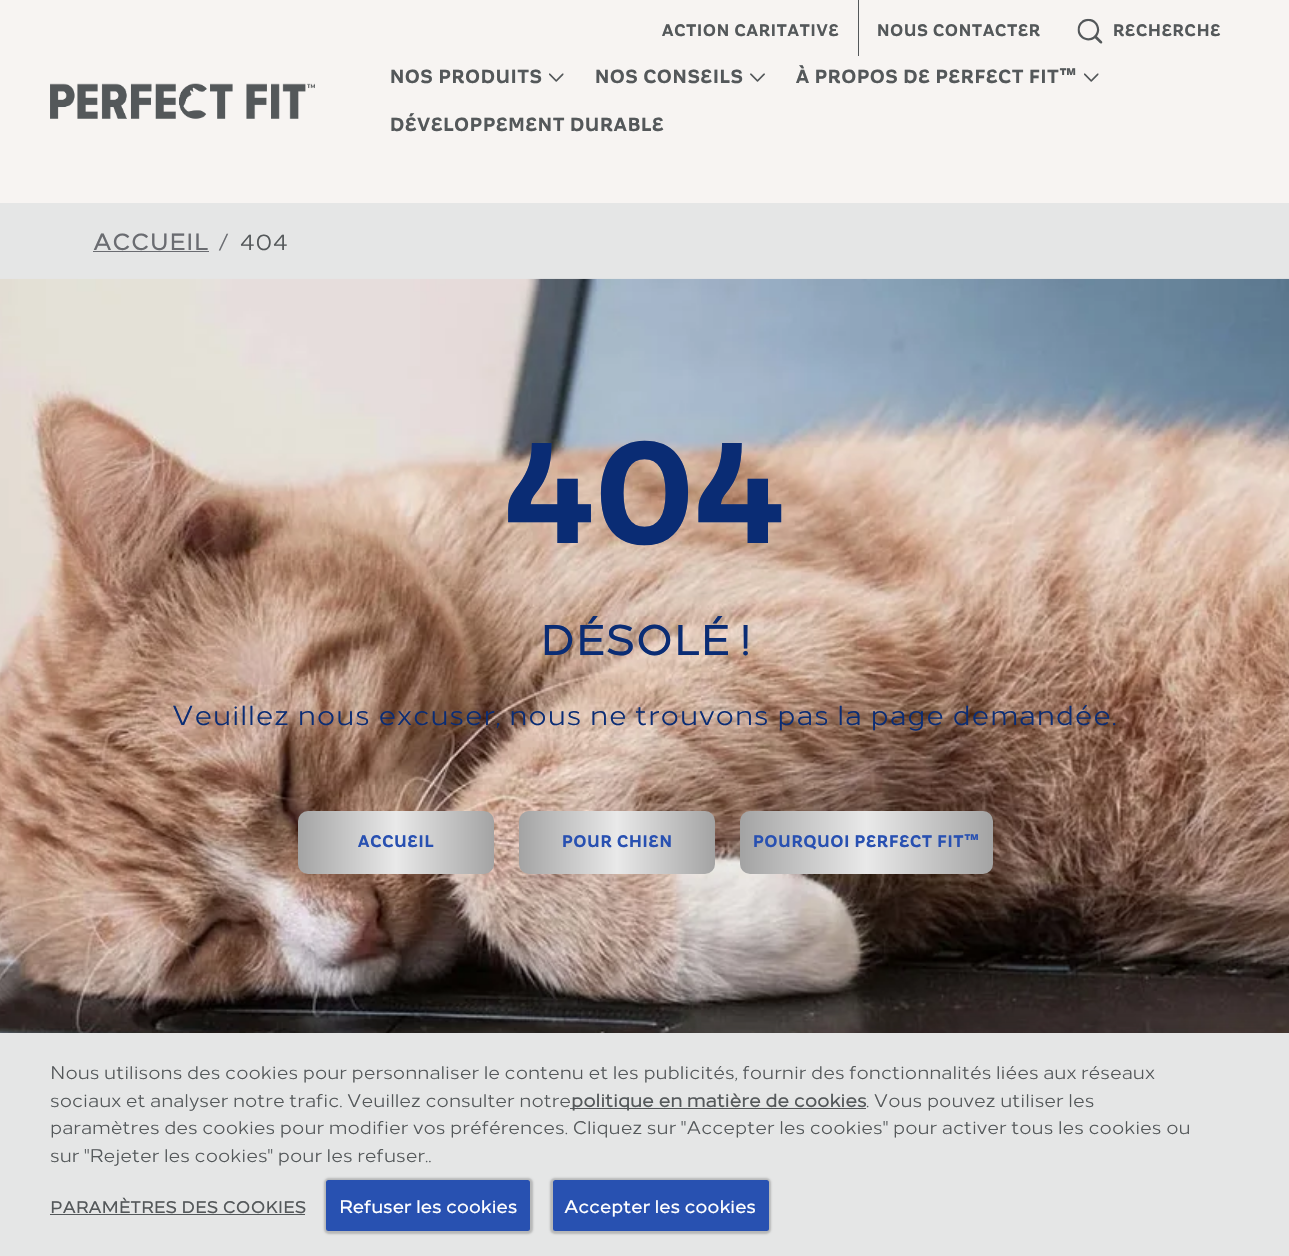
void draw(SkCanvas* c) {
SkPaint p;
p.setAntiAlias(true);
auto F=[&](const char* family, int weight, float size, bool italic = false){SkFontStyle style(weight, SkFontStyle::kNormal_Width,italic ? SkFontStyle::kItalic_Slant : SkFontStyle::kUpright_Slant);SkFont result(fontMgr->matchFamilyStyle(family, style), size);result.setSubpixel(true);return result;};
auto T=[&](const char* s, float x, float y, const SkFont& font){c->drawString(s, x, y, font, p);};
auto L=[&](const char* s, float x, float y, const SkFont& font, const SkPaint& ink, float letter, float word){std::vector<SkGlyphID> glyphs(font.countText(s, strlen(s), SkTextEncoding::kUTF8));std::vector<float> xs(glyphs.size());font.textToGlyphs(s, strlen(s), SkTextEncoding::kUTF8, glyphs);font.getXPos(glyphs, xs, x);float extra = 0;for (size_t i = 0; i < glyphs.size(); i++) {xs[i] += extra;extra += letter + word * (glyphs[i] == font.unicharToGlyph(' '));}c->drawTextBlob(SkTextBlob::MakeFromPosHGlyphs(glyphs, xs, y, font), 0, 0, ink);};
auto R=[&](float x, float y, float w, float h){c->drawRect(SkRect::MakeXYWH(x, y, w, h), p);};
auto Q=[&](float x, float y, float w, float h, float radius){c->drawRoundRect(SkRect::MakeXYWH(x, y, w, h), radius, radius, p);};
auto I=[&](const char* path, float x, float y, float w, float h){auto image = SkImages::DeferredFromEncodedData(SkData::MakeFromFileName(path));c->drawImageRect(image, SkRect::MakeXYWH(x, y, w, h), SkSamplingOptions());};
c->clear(0xfff7f4f2);
auto f1 = F("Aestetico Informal",700,17.5);
p.setColor(0xff54585a);
L("ACTION CARITATIVE",662,36,f1,p,.88,0);
R(858,0,1,56);
L("NOUS CONTACTER",877,36,f1,p,.88,0);
I("1.png",1077,18,26,26);
L("RECHERCHE",1113,36,f1,p,.88,0);
I("2.png",50,83,265,36);
auto f2 = F("Aestetico Informal",700,20);
L("NOS PRODUITS",390,83,f2,p,.88,0);
I("3.png",549,73,15,9);
L("NOS CONSEILS",595,83,f2,p,.88,0);
I("4.png",750,73,15,9);
L("À PROPOS DE PERFECT FIT™",796,83,f2,p,.88,0);
I("3.png",1084,73,15,9);
L("DÉVELOPPEMENT DURABLE",390,131,f2,p,.88,0);
p.setColor(0xffe5e6e6);
R(0,203,1289,76);
auto f3 = F("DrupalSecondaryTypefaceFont",700,22.5);
p.setColor(0xff6a6c71);
L("ACCUEIL",93,250,f3,p,.88,0);
R(93,251,116,1);
auto f4 = F("DrupalSecondaryTypefaceFont",400,22.5);
L("/",218,250,f4,p,.88,0);
p.setColor(0xff54585a);
L("404",240,250,f4,p,.88,0);
I("5.png",0,278,1289,755);
auto f5 = F("Aestetico Informal",700,150);
p.setColor(0xff0a2c74);
L("404",505,543,f5,p,.88,0);
auto f6 = F("DrupalSecondaryTypefaceFont",700,41.25);
L("DÉSOLÉ !",540,655,f6,p,.88,0);
auto f7 = F("DrupalSecondaryTypefaceFont",400,27.5);
L("Veuillez nous excuser, nous ne trouvons pas la page demandée.",172,725,f7,p,.88,0);
{
const SkColor colors[] = {0xffa3a3a3,0xffe9e9e9,0xffa3a3a3};
const float stops[] = {0,.5,1};
const SkPoint ends[] = {{298,843}, {494,843}};
p.setShader(SkGradientShader::MakeLinear(ends, colors, stops, 3, SkTileMode::kClamp));
p.setAlpha(255);
}
Q(298,811,196,63,10);
p.setShader(nullptr);
p.setColor(0xff2850b1);
L("ACCUEIL",358,847,f1,p,.88,0);
{
const SkColor colors[] = {0xffa3a3a3,0xffe9e9e9,0xffa3a3a3};
const float stops[] = {0,.5,1};
const SkPoint ends[] = {{519,843}, {715,843}};
p.setShader(SkGradientShader::MakeLinear(ends, colors, stops, 3, SkTileMode::kClamp));
p.setAlpha(255);
}
Q(519,811,196,63,10);
p.setShader(nullptr);
p.setColor(0xff2850b1);
L("POUR CHIEN",562,847,f1,p,.88,0);
{
const SkColor colors[] = {0xffa3a3a3,0xffe9e9e9,0xffa3a3a3};
const float stops[] = {0,.5,1};
const SkPoint ends[] = {{740,843}, {993,843}};
p.setShader(SkGradientShader::MakeLinear(ends, colors, stops, 3, SkTileMode::kClamp));
p.setAlpha(255);
}
Q(740,811,253,63,10);
p.setShader(nullptr);
p.setColor(0xff2850b1);
L("POURQUOI PERFECT FIT™",753,847,f1,p,.88,0);
p.setColor(0x33000000);
p.setMaskFilter(SkMaskFilter::MakeBlur(kNormal_SkBlurStyle, 11));
c->drawRect(SkRect::MakeXYWH(0,1033,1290,223),p);
p.setMaskFilter(nullptr);
p.setColor(0xffe5e6e6);
R(0,1033,1289,223);
auto f8 = F("DrupalSecondaryTypefaceFont",400,18.3);
p.setColor(0xff54585a);
T("Nous utilisons des cookies pour personnaliser le contenu et les publicités, fournir des fonctionnalités liées aux réseaux",50,1079,f8);
T("sociaux et analyser notre trafic. Veuillez consulter notre",50,1107,f8);
R(570,1108,296,1);
auto f9 = F("DrupalSecondaryTypefaceFont",700,18.3);
T("politique en matière de cookies",571,1107,f9);
T(". Vous pouvez utiliser les",866,1107,f8);
T("paramètres des cookies pour modifier vos préférences. Cliquez sur \"Accepter les cookies\" pour activer tous les cookies ou",50,1134,f8);
T("sur \"Rejeter les cookies\" pour les refuser..",50,1162,f8);
auto f10 = F("DrupalSecondaryTypefaceFont",700,16.25);
L("PARAMÈTRES DES COOKIES",50,1213,f10,p,.2,0);
R(50,1214,255,1);
p.setColor(0x33000000);
p.setMaskFilter(SkMaskFilter::MakeBlur(kNormal_SkBlurStyle, 1));
c->drawRoundRect(SkRect::MakeXYWH(324,1178,209,56),5,5,p);
p.setMaskFilter(nullptr);
p.setColor(0xff2851b1);
Q(326,1180,204,51,2.5);
auto f11 = F("DrupalSecondaryTypefaceFont",700,17.5);
p.setColor(0xffffffff);
L("Refuser les cookies",339,1213,f11,p,.2,0);
p.setColor(0x33000000);
p.setMaskFilter(SkMaskFilter::MakeBlur(kNormal_SkBlurStyle, 1));
c->drawRoundRect(SkRect::MakeXYWH(550,1178,221,56),5,5,p);
p.setMaskFilter(nullptr);
p.setColor(0xff2851b1);
Q(553,1180,216,51,2.5);
p.setColor(0xffffffff);
L("Accepter les cookies",564,1213,f11,p,.2,0);
}
